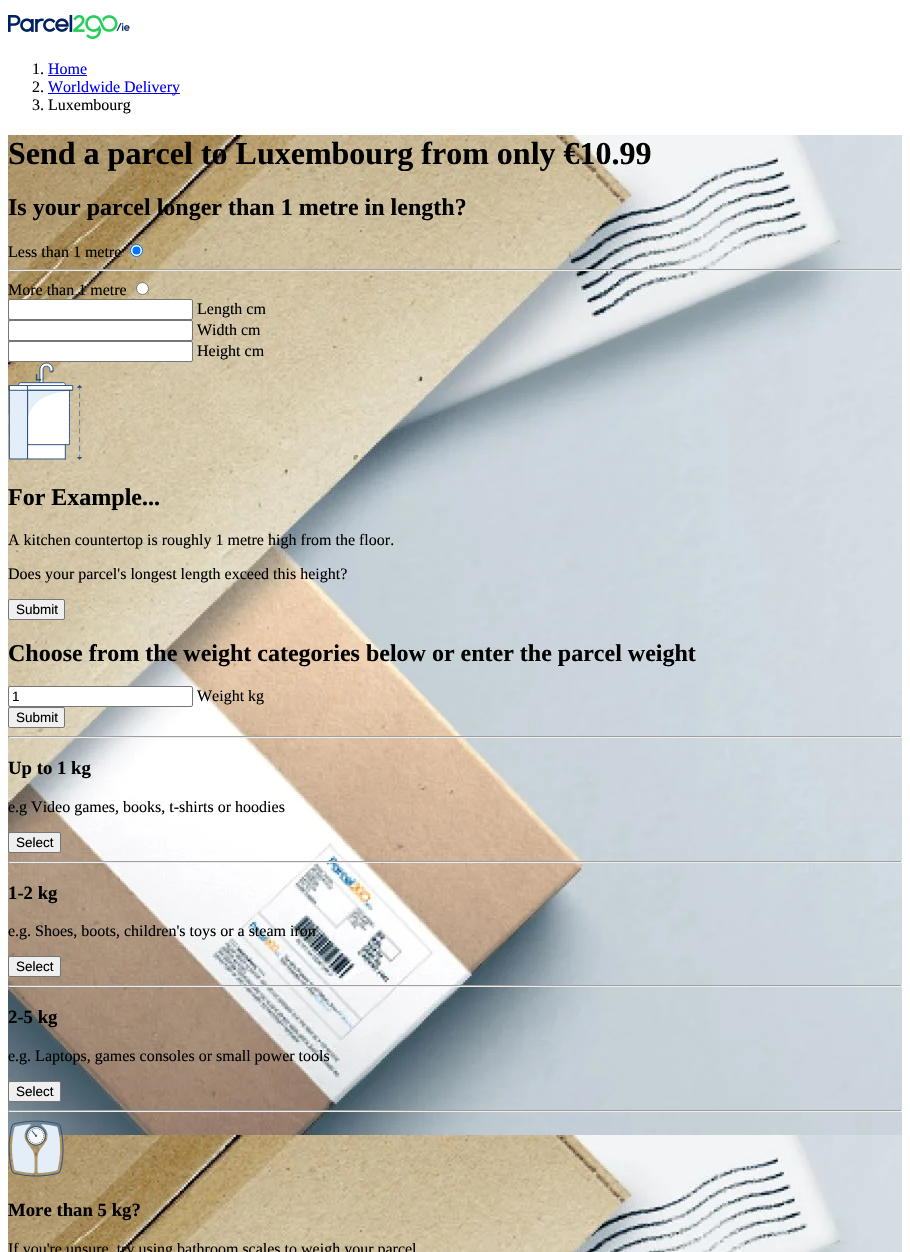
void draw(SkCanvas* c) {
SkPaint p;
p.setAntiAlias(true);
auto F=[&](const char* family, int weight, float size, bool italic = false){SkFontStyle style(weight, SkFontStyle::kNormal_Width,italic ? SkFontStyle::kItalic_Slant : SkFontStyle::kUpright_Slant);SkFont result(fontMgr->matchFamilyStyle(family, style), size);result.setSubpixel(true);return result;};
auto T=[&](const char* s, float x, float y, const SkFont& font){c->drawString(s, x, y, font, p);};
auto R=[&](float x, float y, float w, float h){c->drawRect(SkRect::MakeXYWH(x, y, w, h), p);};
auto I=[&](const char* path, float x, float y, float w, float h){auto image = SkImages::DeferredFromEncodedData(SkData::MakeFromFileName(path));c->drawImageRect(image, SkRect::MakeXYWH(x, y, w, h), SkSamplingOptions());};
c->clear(0xffffffff);
I("1.png",8,15,122,24);
auto f1 = F("Liberation Serif",400,16);
p.setColor(0xff000000);
T("1.",32,74,f1);
p.setColor(0xff0000ee);
T("Home",48,74,f1);
R(48,75,39,1);
p.setColor(0xff000000);
T("2.",32,92,f1);
p.setColor(0xff0000ee);
R(48,93,132,1);
T("Worldwide Delivery",48,92,f1);
p.setColor(0xff000000);
T("3. Luxembourg",32,110,f1);
I("2.png",8,135,894,1117);
auto f2 = F("Liberation Serif",700,32);
T("Send a parcel to Luxembourg from only €10.99",8,164,f2);
auto f3 = F("Liberation Serif",700,24);
T("Is your parcel longer than 1 metre in length?",8,215,f3);
T("Less than 1 metre",8,257,f1);
p.setColor(0xffffffff);
c->drawCircle(136.5,250.5,6,p);
p.setStroke(true);
p.setStrokeWidth(1);
p.setColor(0xff0075ff);
c->drawCircle(136.5,250.5,6,p);
p.setStroke(false);
c->drawCircle(136.5,250.5,4,p);
p.setColor(0xff9f9f9f);
R(8,269,894,1);
p.setColor(0xffeeeeee);
R(901,269,1,2);
R(8,270,894,1);
p.setColor(0xff9f9f9f);
R(8,269,1,2);
p.setColor(0xff000000);
T("More than 1 metre",8,295,f1);
p.setColor(0xffffffff);
c->drawCircle(142.5,288.5,6,p);
p.setStroke(true);
p.setColor(0xff767676);
c->drawCircle(142.5,288.5,6,p);
p.setStroke(false);
p.setColor(0xffffffff);
c->drawRoundRect(SkRect::MakeXYWH(8.5,299.5,184,20),1.5,1.5,p);
p.setStroke(true);
p.setColor(0xff767676);
c->drawRoundRect(SkRect::MakeXYWH(8.5,299.5,184,20),1.5,1.5,p);
p.setStroke(false);
p.setColor(0xff000000);
T("Length cm",197,314,f1);
p.setColor(0xffffffff);
c->drawRoundRect(SkRect::MakeXYWH(8.5,320.5,184,20),1.5,1.5,p);
p.setStroke(true);
p.setColor(0xff767676);
c->drawRoundRect(SkRect::MakeXYWH(8.5,320.5,184,20),1.5,1.5,p);
p.setStroke(false);
p.setColor(0xff000000);
T("Width cm",197,335,f1);
p.setColor(0xffffffff);
c->drawRoundRect(SkRect::MakeXYWH(8.5,341.5,184,20),1.5,1.5,p);
p.setStroke(true);
p.setColor(0xff767676);
c->drawRoundRect(SkRect::MakeXYWH(8.5,341.5,184,20),1.5,1.5,p);
p.setStroke(false);
p.setColor(0xff000000);
T("Height cm",197,356,f1);
I("3.png",8,362,74,98);
T("For Example...",8,505,f3);
T("A kitchen countertop is roughly 1 metre high from the floor.",8,545,f1);
T("Does your parcel's longest length exceed this height?",8,579,f1);
p.setColor(0xffefefef);
c->drawRoundRect(SkRect::MakeXYWH(8.5,599.5,56,20),1.5,1.5,p);
p.setStroke(true);
p.setColor(0xff767676);
c->drawRoundRect(SkRect::MakeXYWH(8.5,599.5,56,20),1.5,1.5,p);
auto f4 = F("Liberation Sans",400,13.5);
p.setStroke(false);
p.setColor(0xff000000);
T("Submit",16,614,f4);
T("Choose from the weight categories below or enter the parcel weight",8,661,f3);
p.setColor(0xffffffff);
c->drawRoundRect(SkRect::MakeXYWH(8.5,686.5,184,20),1.5,1.5,p);
p.setStroke(true);
p.setColor(0xff767676);
c->drawRoundRect(SkRect::MakeXYWH(8.5,686.5,184,20),1.5,1.5,p);
p.setStroke(false);
p.setColor(0xff000000);
T("1",12,701,f4);
T("Weight kg",197,701,f1);
p.setColor(0xffefefef);
c->drawRoundRect(SkRect::MakeXYWH(8.5,707.5,56,20),1.5,1.5,p);
p.setStroke(true);
p.setColor(0xff767676);
c->drawRoundRect(SkRect::MakeXYWH(8.5,707.5,56,20),1.5,1.5,p);
p.setStroke(false);
p.setColor(0xff000000);
T("Submit",16,722,f4);
p.setColor(0xff9f9f9f);
R(8,736,894,1);
p.setColor(0xffeeeeee);
R(901,736,1,2);
R(8,737,894,1);
p.setColor(0xff9f9f9f);
R(8,736,1,2);
auto f5 = F("Liberation Serif",700,18.75);
p.setColor(0xff000000);
T("Up to 1 kg",8,774,f5);
T("e.g Video games, books, t-shirts or hoodies",8,812,f1);
p.setColor(0xffefefef);
c->drawRoundRect(SkRect::MakeXYWH(8.5,832.5,52,20),1.5,1.5,p);
p.setStroke(true);
p.setColor(0xff767676);
c->drawRoundRect(SkRect::MakeXYWH(8.5,832.5,52,20),1.5,1.5,p);
p.setStroke(false);
p.setColor(0xff000000);
T("Select",16,847,f4);
p.setColor(0xff9f9f9f);
R(8,861,894,1);
p.setColor(0xffeeeeee);
R(901,861,1,2);
R(8,862,894,1);
p.setColor(0xff9f9f9f);
R(8,861,1,2);
p.setColor(0xff000000);
T("1-2 kg",8,899,f5);
T("e.g. Shoes, boots, children's toys or a steam iron",8,936,f1);
p.setColor(0xffefefef);
c->drawRoundRect(SkRect::MakeXYWH(8.5,956.5,52,20),1.5,1.5,p);
p.setStroke(true);
p.setColor(0xff767676);
c->drawRoundRect(SkRect::MakeXYWH(8.5,956.5,52,20),1.5,1.5,p);
p.setStroke(false);
p.setColor(0xff000000);
T("Select",16,971,f4);
p.setColor(0xff9f9f9f);
R(8,985,894,1);
p.setColor(0xffeeeeee);
R(901,985,1,2);
R(8,986,894,1);
p.setColor(0xff9f9f9f);
R(8,985,1,2);
p.setColor(0xff000000);
T("2-5 kg",8,1023,f5);
T("e.g. Laptops, games consoles or small power tools",8,1061,f1);
p.setColor(0xffefefef);
c->drawRoundRect(SkRect::MakeXYWH(8.5,1081.5,52,20),1.5,1.5,p);
p.setStroke(true);
p.setColor(0xff767676);
c->drawRoundRect(SkRect::MakeXYWH(8.5,1081.5,52,20),1.5,1.5,p);
p.setStroke(false);
p.setColor(0xff000000);
T("Select",16,1096,f4);
p.setColor(0xff9f9f9f);
R(8,1110,894,1);
p.setColor(0xffeeeeee);
R(901,1110,1,2);
R(8,1111,894,1);
p.setColor(0xff9f9f9f);
R(8,1110,1,2);
I("4.png",8,1120,56,57);
p.setColor(0xff000000);
T("More than 5 kg?",8,1216,f5);
T("If you're unsure, try using bathroom scales to weigh your parcel",8,1254,f1);
}
